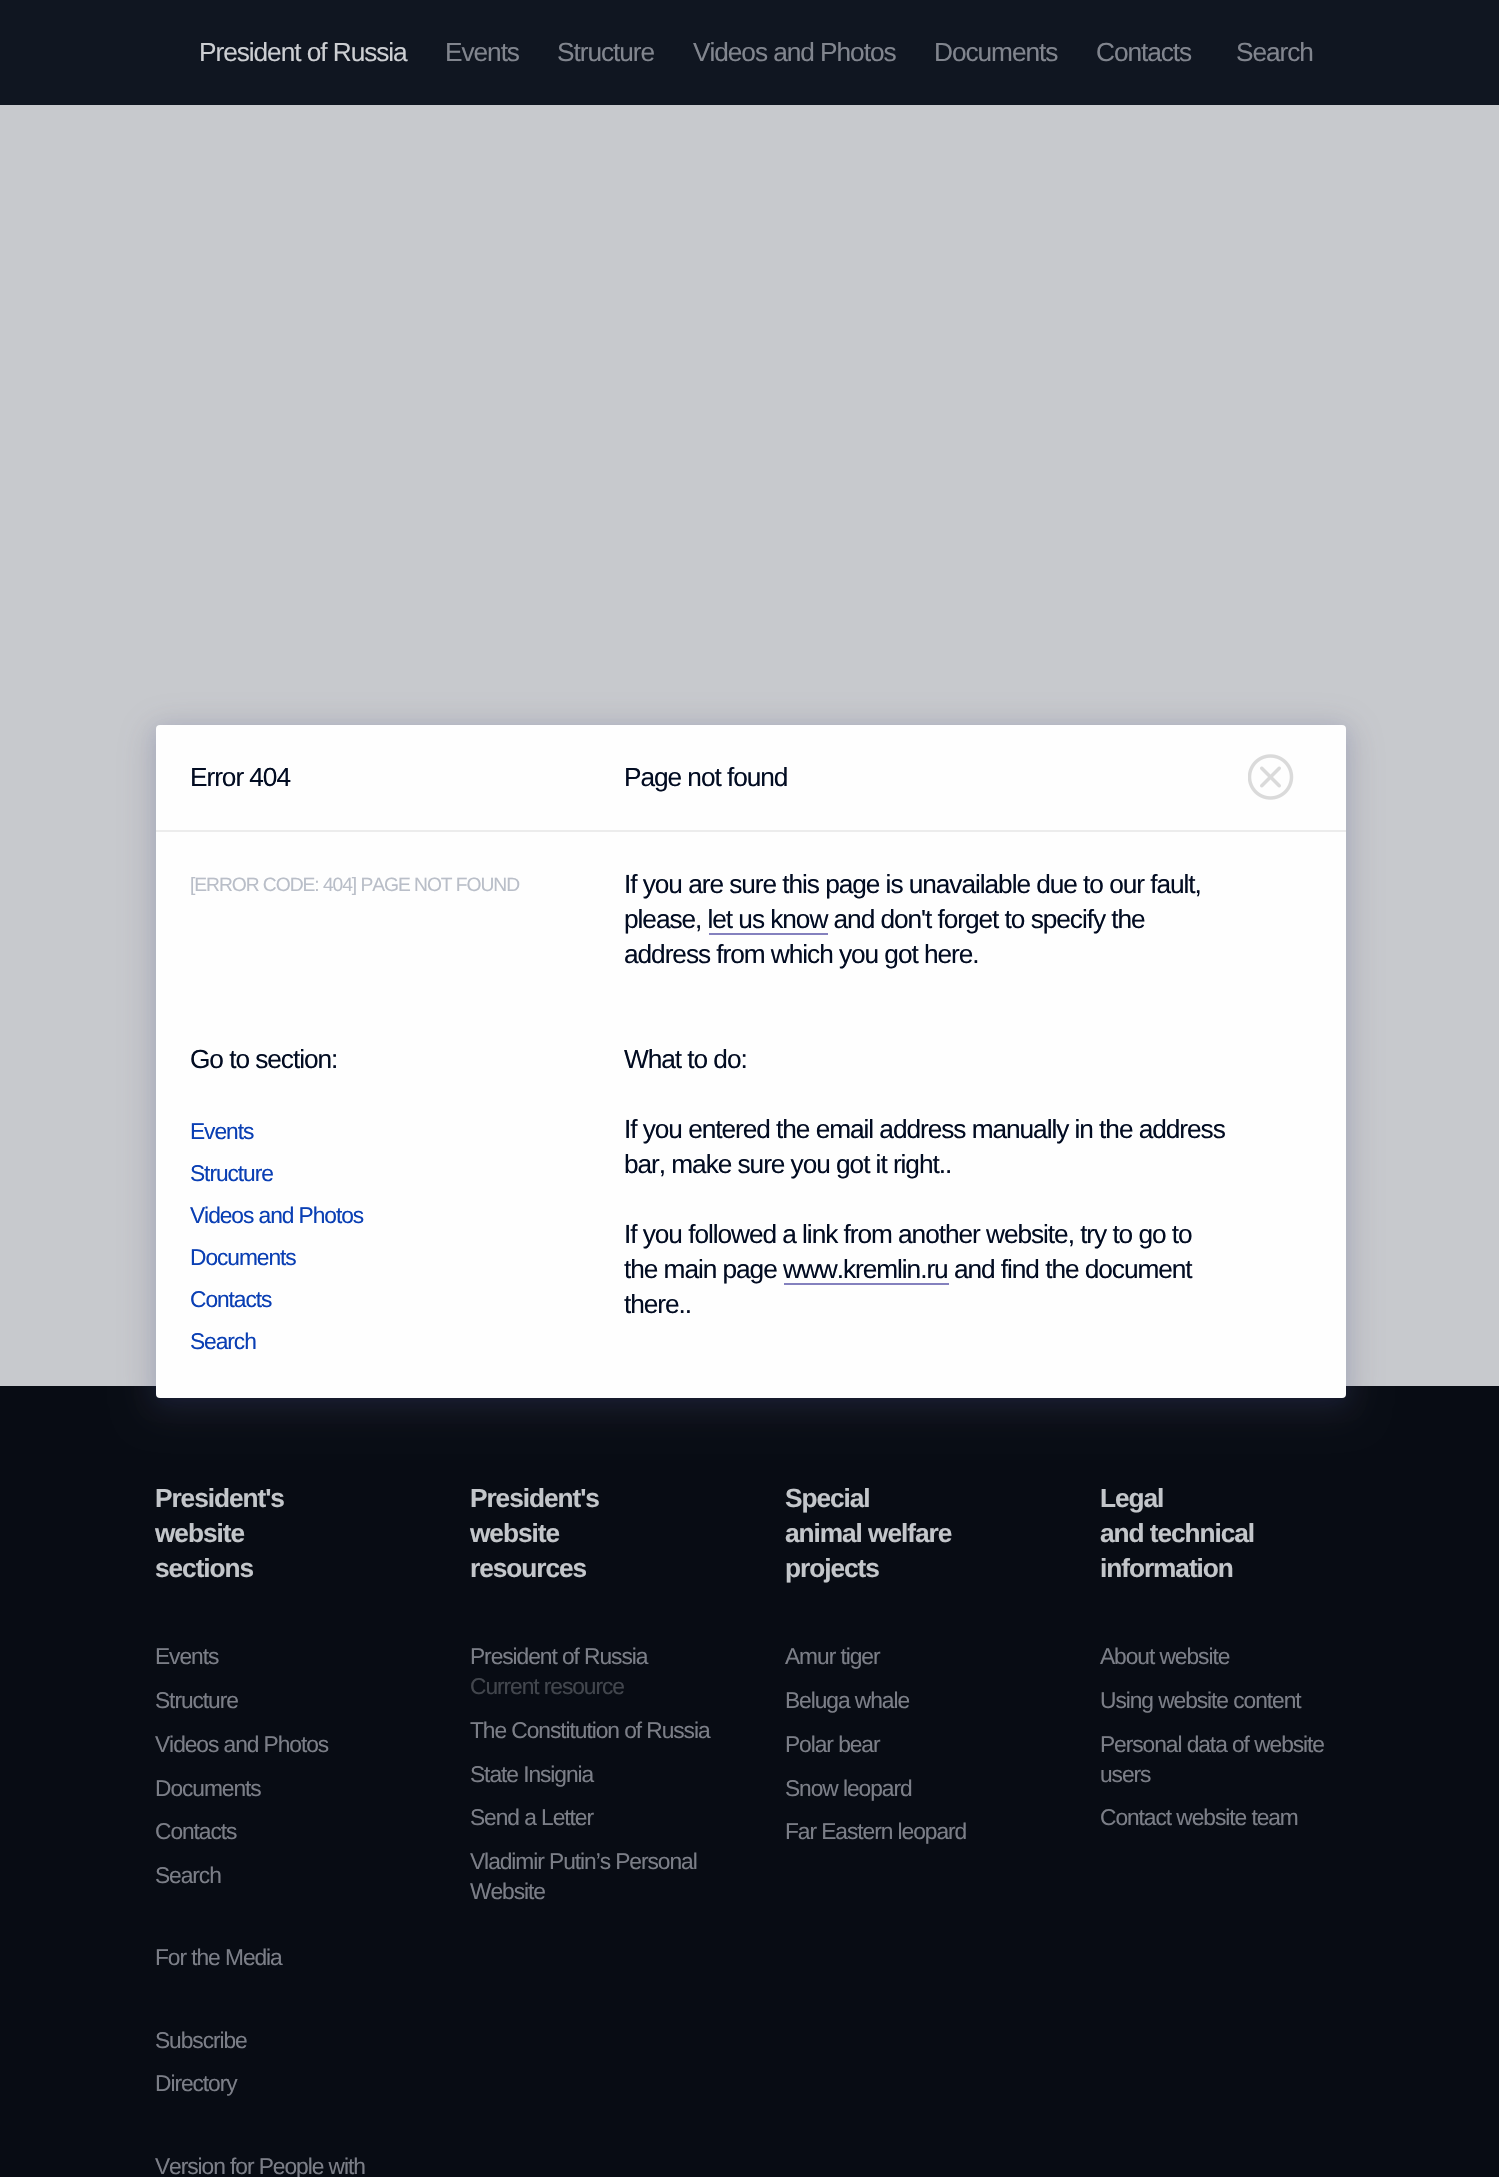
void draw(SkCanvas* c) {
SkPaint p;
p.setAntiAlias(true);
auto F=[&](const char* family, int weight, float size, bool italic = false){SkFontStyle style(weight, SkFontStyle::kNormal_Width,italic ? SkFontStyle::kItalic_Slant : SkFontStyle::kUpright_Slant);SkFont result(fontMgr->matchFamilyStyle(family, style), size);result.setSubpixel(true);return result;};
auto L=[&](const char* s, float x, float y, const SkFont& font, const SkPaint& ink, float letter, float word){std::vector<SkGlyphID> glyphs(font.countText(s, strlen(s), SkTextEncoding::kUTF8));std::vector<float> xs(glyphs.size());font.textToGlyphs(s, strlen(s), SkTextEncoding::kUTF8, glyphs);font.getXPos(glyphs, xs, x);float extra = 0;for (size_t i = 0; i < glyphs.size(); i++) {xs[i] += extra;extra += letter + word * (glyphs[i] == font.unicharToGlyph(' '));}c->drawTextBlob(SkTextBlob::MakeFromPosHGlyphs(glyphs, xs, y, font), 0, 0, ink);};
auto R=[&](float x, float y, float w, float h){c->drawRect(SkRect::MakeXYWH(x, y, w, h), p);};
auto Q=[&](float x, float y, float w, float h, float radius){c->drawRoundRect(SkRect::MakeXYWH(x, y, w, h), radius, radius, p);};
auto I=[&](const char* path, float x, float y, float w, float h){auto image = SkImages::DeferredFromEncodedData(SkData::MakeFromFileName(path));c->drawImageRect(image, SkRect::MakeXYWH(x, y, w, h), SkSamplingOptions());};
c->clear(0xffc7c9cd);
p.setColor(0xff101621);
R(0,0,1499,105);
auto f1 = F("Liberation Sans",400,26.25);
p.setColor(0xffccced2);
L("President of Russia",199,61,f1,p,-1.05,0);
p.setColor(0xff81858e);
L("Events",445,61,f1,p,-1.05,0);
L("Structure",557,61,f1,p,-1.05,0);
L("Videos and Photos",693,61,f1,p,-1.05,0);
L("Documents",934,61,f1,p,-1.05,0);
L("Contacts",1096,61,f1,p,-1.05,0);
L("Search",1236,61,f1,p,-1.05,0);
p.setColor(0xff080c14);
R(0,1386,1499,791);
p.setColor(0x33565268);
p.setMaskFilter(SkMaskFilter::MakeBlur(kNormal_SkBlurStyle, 17.5));
c->drawRoundRect(SkRect::MakeXYWH(149,725,1204,687),11,11,p);
p.setMaskFilter(nullptr);
p.setColor(0x1a2a40c8);
p.setMaskFilter(SkMaskFilter::MakeBlur(kNormal_SkBlurStyle, 9));
c->drawRoundRect(SkRect::MakeXYWH(156,728,1190,674),4,4,p);
p.setMaskFilter(nullptr);
p.setColor(0xfffefefe);
Q(156,725,1190,673,4);
p.setColor(0xff020c22);
L("Error 404",190,786,f1,p,-1.05,0);
L("Page not found",624,786,f1,p,-1.05,0);
p.setColor(0xffececec);
R(156,830,1190,2);
auto f2 = F("Liberation Sans",400,19.25);
p.setColor(0xffb9bec8);
L("[ERROR CODE: 404] PAGE NOT FOUND",190,891,f2,p,-1.05,0);
p.setColor(0xff020c22);
L("If you are sure this page is unavailable due to our fault,",624,893,f1,p,-1.05,0);
L("please, let us know and don't forget to specify the",624,928,f1,p,-1.05,0);
p.setColor(0xff8481be);
R(709,933,119,2);
p.setColor(0xff020c22);
L("address from which you got here.",624,963,f1,p,-1.05,0);
L("Go to section:",190,1068,f1,p,-1.05,0);
auto f3 = F("Liberation Sans",400,22.75);
p.setColor(0xff0a3fb4);
L("Events",190,1139,f3,p,-1.05,0);
L("Structure",190,1181,f3,p,-1.05,0);
L("Videos and Photos",190,1223,f3,p,-1.05,0);
L("Documents",190,1265,f3,p,-1.05,0);
L("Contacts",190,1307,f3,p,-1.05,0);
L("Search",190,1349,f3,p,-1.05,0);
p.setColor(0xff020c22);
L("What to do:",624,1068,f1,p,-1.05,0);
L("If you entered the email address manually in the address",624,1138,f1,p,-1.05,0);
L("bar, make sure you got it right..",624,1173,f1,p,-1.05,0);
L("If you followed a link from another website, try to go to",624,1243,f1,p,-1.05,0);
L("the main page www.kremlin.ru and find the document",624,1278,f1,p,-1.05,0);
p.setColor(0xff8481be);
R(784,1283,165,2);
p.setColor(0xff020c22);
L("there..",624,1313,f1,p,-1.05,0);
I("1.png",1248,754,46,46);
auto f4 = F("Liberation Sans",700,26.25);
p.setColor(0xffc3c6ca);
L("President's",155,1507,f4,p,-1.05,0);
L("website",155,1542,f4,p,-1.05,0);
L("sections",155,1577,f4,p,-1.05,0);
p.setColor(0xff7b7e87);
L("Events",155,1664,f3,p,-1.05,0);
L("Structure",155,1708,f3,p,-1.05,0);
L("Videos and Photos",155,1752,f3,p,-1.05,0);
L("Documents",155,1796,f3,p,-1.05,0);
L("Contacts",155,1839,f3,p,-1.05,0);
L("Search",155,1883,f3,p,-1.05,0);
L("For the Media",155,1965,f3,p,-1.05,0);
L("Subscribe",155,2048,f3,p,-1.05,0);
L("Directory",155,2091,f3,p,-1.05,0);
L("Version for People with",155,2174,f3,p,-1.05,0);
p.setColor(0xffc3c6ca);
L("President's",470,1507,f4,p,-1.05,0);
L("website",470,1542,f4,p,-1.05,0);
L("resources",470,1577,f4,p,-1.05,0);
p.setColor(0xff7b7e87);
L("President of Russia",470,1664,f3,p,-1.05,0);
p.setColor(0xff42464d);
L("Current resource",470,1694,f3,p,-1.05,0);
p.setColor(0xff7b7e87);
L("The Constitution of Russia",470,1738,f3,p,-1.05,0);
L("State Insignia",470,1782,f3,p,-1.05,0);
L("Send a Letter",470,1825,f3,p,-1.05,0);
L("Vladimir Putin’s Personal",470,1869,f3,p,-1.05,0);
L("Website",470,1899,f3,p,-1.05,0);
p.setColor(0xffc3c6ca);
L("Special",785,1507,f4,p,-1.05,0);
L("animal welfare",785,1542,f4,p,-1.05,0);
L("projects",785,1577,f4,p,-1.05,0);
p.setColor(0xff7b7e87);
L("Amur tiger",785,1664,f3,p,-1.05,0);
L("Beluga whale",785,1708,f3,p,-1.05,0);
L("Polar bear",785,1752,f3,p,-1.05,0);
L("Snow leopard",785,1796,f3,p,-1.05,0);
L("Far Eastern leopard",785,1839,f3,p,-1.05,0);
p.setColor(0xffc3c6ca);
L("Legal",1100,1507,f4,p,-1.05,0);
L("and technical",1100,1542,f4,p,-1.05,0);
L("information",1100,1577,f4,p,-1.05,0);
p.setColor(0xff7b7e87);
L("About website",1100,1664,f3,p,-1.05,0);
L("Using website content",1100,1708,f3,p,-1.05,0);
L("Personal data of website",1100,1752,f3,p,-1.05,0);
L("users",1100,1782,f3,p,-1.05,0);
L("Contact website team",1100,1825,f3,p,-1.05,0);
}
